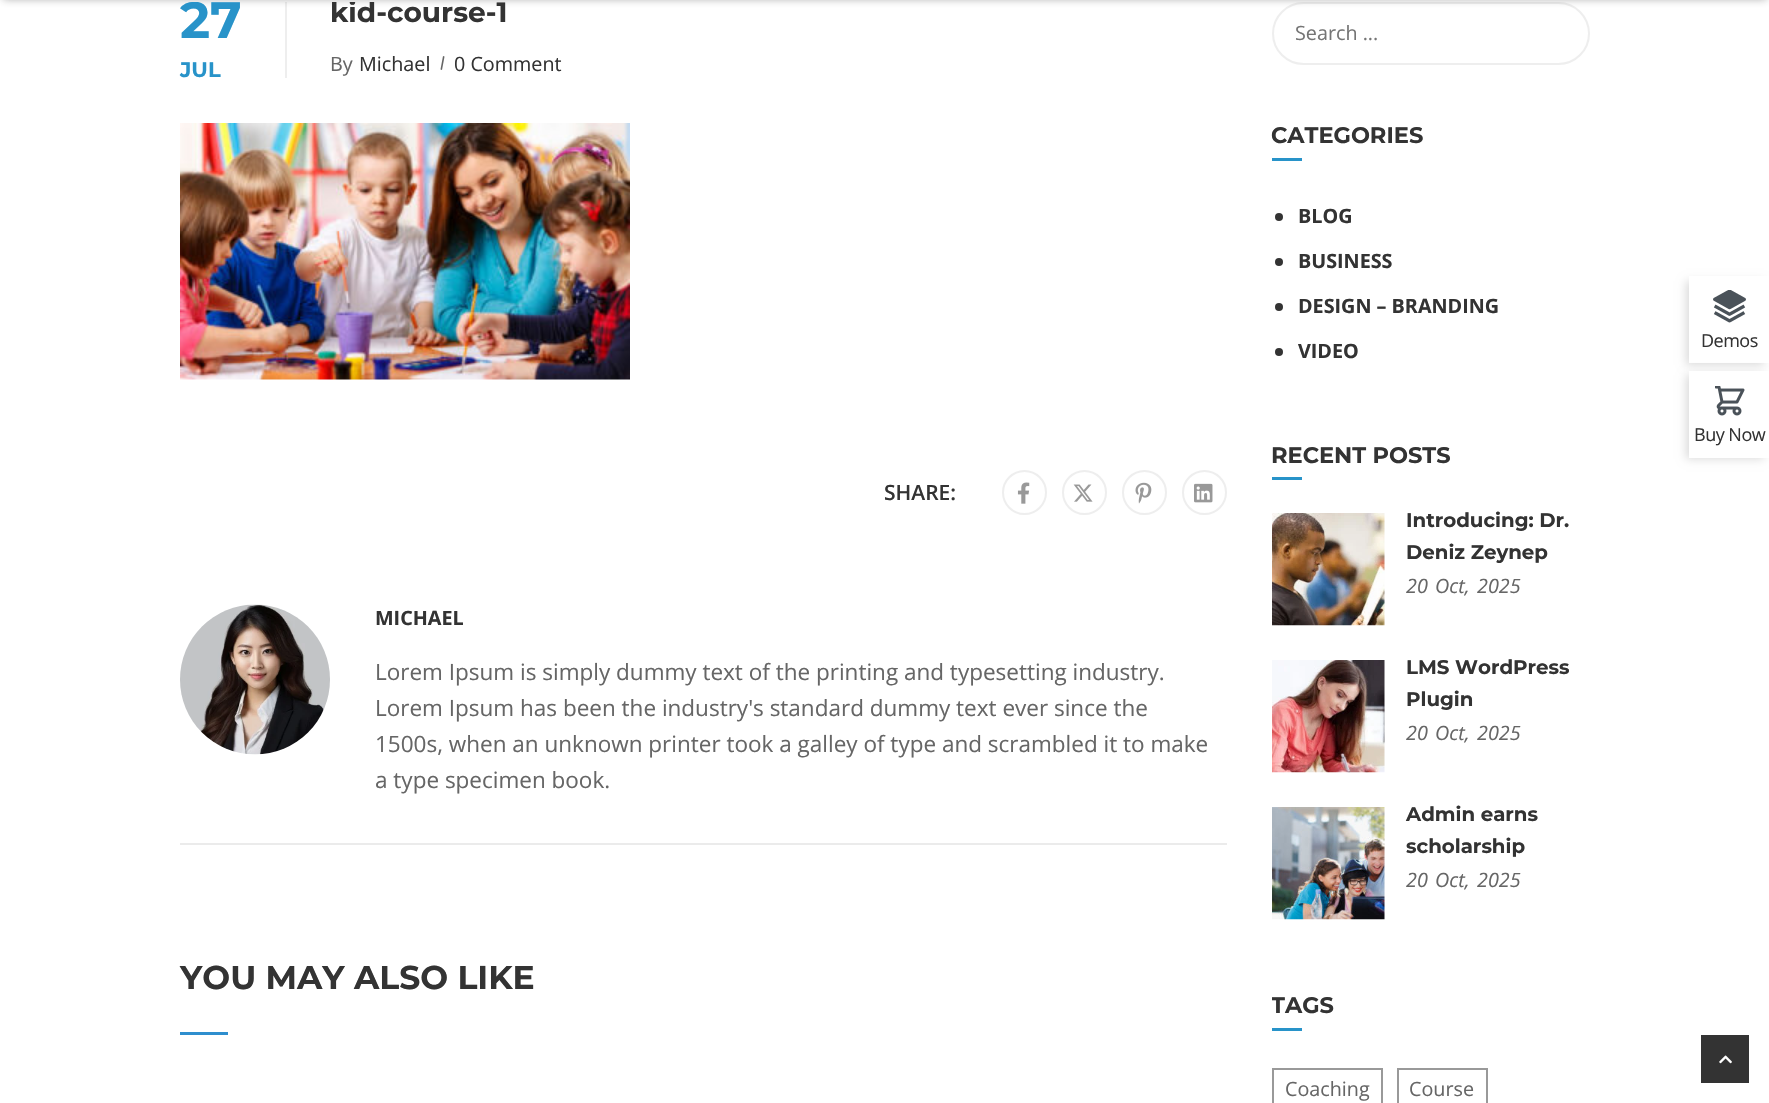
void draw(SkCanvas* c) {
SkPaint p;
p.setAntiAlias(true);
auto F=[&](const char* family, int weight, float size, bool italic = false){SkFontStyle style(weight, SkFontStyle::kNormal_Width,italic ? SkFontStyle::kItalic_Slant : SkFontStyle::kUpright_Slant);SkFont result(fontMgr->matchFamilyStyle(family, style), size);result.setSubpixel(true);return result;};
auto T=[&](const char* s, float x, float y, const SkFont& font){c->drawString(s, x, y, font, p);};
auto L=[&](const char* s, float x, float y, const SkFont& font, const SkPaint& ink, float letter, float word){std::vector<SkGlyphID> glyphs(font.countText(s, strlen(s), SkTextEncoding::kUTF8));std::vector<float> xs(glyphs.size());font.textToGlyphs(s, strlen(s), SkTextEncoding::kUTF8, glyphs);font.getXPos(glyphs, xs, x);float extra = 0;for (size_t i = 0; i < glyphs.size(); i++) {xs[i] += extra;extra += letter + word * (glyphs[i] == font.unicharToGlyph(' '));}c->drawTextBlob(SkTextBlob::MakeFromPosHGlyphs(glyphs, xs, y, font), 0, 0, ink);};
auto R=[&](float x, float y, float w, float h){c->drawRect(SkRect::MakeXYWH(x, y, w, h), p);};
auto I=[&](const char* path, float x, float y, float w, float h){auto image = SkImages::DeferredFromEncodedData(SkData::MakeFromFileName(path));c->drawImageRect(image, SkRect::MakeXYWH(x, y, w, h), SkSamplingOptions());};
auto P=[&](const char* data, bool evenOdd = false){SkPath result = *SkParsePath::FromSVGString(data);if (evenOdd) result.setFillType(SkPathFillType::kEvenOdd);return result;};
c->clear(0xffffffff);
p.setColor(0xffeeeeee);
R(285,2,2,76);
p.setStroke(true);
p.setStrokeWidth(2);
c->drawRoundRect(SkRect::MakeXYWH(1273,3,316,61),30.5,30.5,p);
p.setStroke(false);
p.setColor(0x662a2a2a);
p.setMaskFilter(SkMaskFilter::MakeBlur(kNormal_SkBlurStyle, 4));
c->drawRect(SkRect::MakeXYWH(3,-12,1764,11),p);
p.setMaskFilter(nullptr);
c->save();
c->clipRect(SkRect::MakeXYWH(180,2,1047,76));
auto f1 = F("Montserrat",700,51);
p.setColor(0xff2893c9);
T("27",180,38,f1);
c->restore();
auto f2 = F("Montserrat",700,21);
T("JUL",180,77,f2);
c->save();
c->clipRect(SkRect::MakeXYWH(180,2,1047,76));
auto f3 = F("Montserrat",700,28);
p.setColor(0xff333333);
T("kid-course-1",330,22,f3);
c->restore();
auto f4 = F("Open Sans",400,19.75);
p.setColor(0xff666666);
T("By",330,71,f4);
p.setColor(0xff333333);
T("Michael",359,71,f4);
p.setColor(0xff666666);
c->drawPath(P("M443 56l1.5 .5l-2.5 13.5l-1.5-.5z"),p);
p.setColor(0xff333333);
T("0 Comment",454,71,f4);
I("1.png",180,123,450,257);
auto f5 = F("Open Sans",600,21);
T("SHARE:",884,500,f5);
p.setStroke(true);
p.setColor(0xffeeeeee);
c->drawCircle(1024.5,492.5,21.5,p);
I("2.png",1017,482,13,22);
c->drawCircle(1084.5,492.5,21.5,p);
I("3.png",1073,484,20,18);
c->drawCircle(1144.5,492.5,21.5,p);
I("4.png",1135,482,17,22);
c->drawCircle(1204.5,492.5,21.5,p);
I("5.png",1194,483,19,20);
p.setStroke(false);
p.setColor(0xffebebeb);
R(180,843,1047,2);
I("6.png",180,604,150,151);
auto f6 = F("Open Sans",700,19.75);
p.setColor(0xff333333);
T("MICHAEL",375,625,f6);
auto f7 = F("Open Sans",400,22.5);
p.setColor(0xff666666);
T("Lorem Ipsum is simply dummy text of the printing and typesetting industry.",375,680,f7);
T("Lorem Ipsum has been the industry's standard dummy text ever since the",375,716,f7);
T("1500s, when an unknown printer took a galley of type and scrambled it to make",375,752,f7);
T("a type specimen book.",375,788,f7);
auto f8 = F("Montserrat",700,33);
p.setColor(0xff333333);
T("YOU MAY ALSO LIKE",180,989,f8);
p.setColor(0xff2e8ece);
R(180,1032,48,3);
p.setColor(0xff757575);
T("Search ...",1295,40,f4);
auto f9 = F("Montserrat",700,22.5);
p.setColor(0xff333333);
T("CATEGORIES",1271,143,f9);
p.setColor(0xff2893c9);
R(1272,158,30,3);
p.setColor(0xff333333);
c->drawCircle(1279,217,4,p);
T("BLOG",1298,223,f6);
c->drawCircle(1279,262,4,p);
T("BUSINESS",1298,268,f6);
c->drawCircle(1279,307,4,p);
T("DESIGN – BRANDING",1298,313,f6);
c->drawCircle(1279,352,4,p);
T("VIDEO",1298,358,f6);
T("RECENT POSTS",1271,463,f9);
p.setColor(0xff2893c9);
R(1272,477,30,3);
I("7.png",1272,513,113,113);
auto f10 = F("Montserrat",700,19.75);
p.setColor(0xff333333);
T("Introducing: Dr.",1406,527,f10);
T("Deniz Zeynep",1406,559,f10);
auto f11 = F("Open Sans",400,19.75,true);
p.setColor(0xff666666);
T("20",1406,593,f11);
T("Oct,",1435,593,f11);
T("2025",1477,593,f11);
I("8.png",1272,660,113,113);
p.setColor(0xff333333);
T("LMS WordPress",1406,674,f10);
T("Plugin",1406,706,f10);
p.setColor(0xff666666);
T("20",1406,740,f11);
T("Oct,",1435,740,f11);
T("2025",1477,740,f11);
I("9.png",1272,807,113,113);
p.setColor(0xff333333);
T("Admin earns",1406,821,f10);
T("scholarship",1406,853,f10);
p.setColor(0xff666666);
T("20",1406,887,f11);
T("Oct,",1435,887,f11);
T("2025",1477,887,f11);
c->save();
c->clipRect(SkRect::MakeXYWH(1272,980,318,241));
p.setColor(0xff333333);
T("TAGS",1271,1013,f9);
c->restore();
p.setColor(0xff2893c9);
R(1272,1028,30,3);
p.setStroke(true);
p.setColor(0xff999999);
c->drawRect(SkRect::MakeXYWH(1273,1069,109,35),p);
p.setStroke(false);
p.setColor(0xff666666);
T("Coaching",1285,1096,f4);
p.setStroke(true);
p.setColor(0xff999999);
c->drawRect(SkRect::MakeXYWH(1398,1069,89,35),p);
p.setStroke(false);
p.setColor(0xff666666);
T("Course",1409,1096,f4);
p.setColor(0xff333333);
R(1701,1035,48,48);
I("10.png",1719,1055,13,9);
c->save();
c->clipPath(P("M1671 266h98v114h-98zm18 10h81v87h-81z",true),true);
p.setColor(0x24000000);
p.setMaskFilter(SkMaskFilter::MakeBlur(kNormal_SkBlurStyle, 4.5));
c->drawRect(SkRect::MakeXYWH(1686,281,78,84),p);
p.setMaskFilter(nullptr);
c->restore();
I("11.png",1713,290,33,33);
auto f12 = F("Open Sans",400,18);
p.setColor(0xff333333);
L("Demos",1701,347,f12,p,-.5,0);
p.setColor(0x24000000);
p.setMaskFilter(SkMaskFilter::MakeBlur(kNormal_SkBlurStyle, 4.5));
c->drawRect(SkRect::MakeXYWH(1686,375,78,84),p);
p.setMaskFilter(nullptr);
p.setColor(0xffffffff);
R(1689,371,80,87);
I("12.png",1715,386,30,30);
p.setColor(0xff333333);
L("Buy Now",1694,441,f12,p,-.5,0);
}
